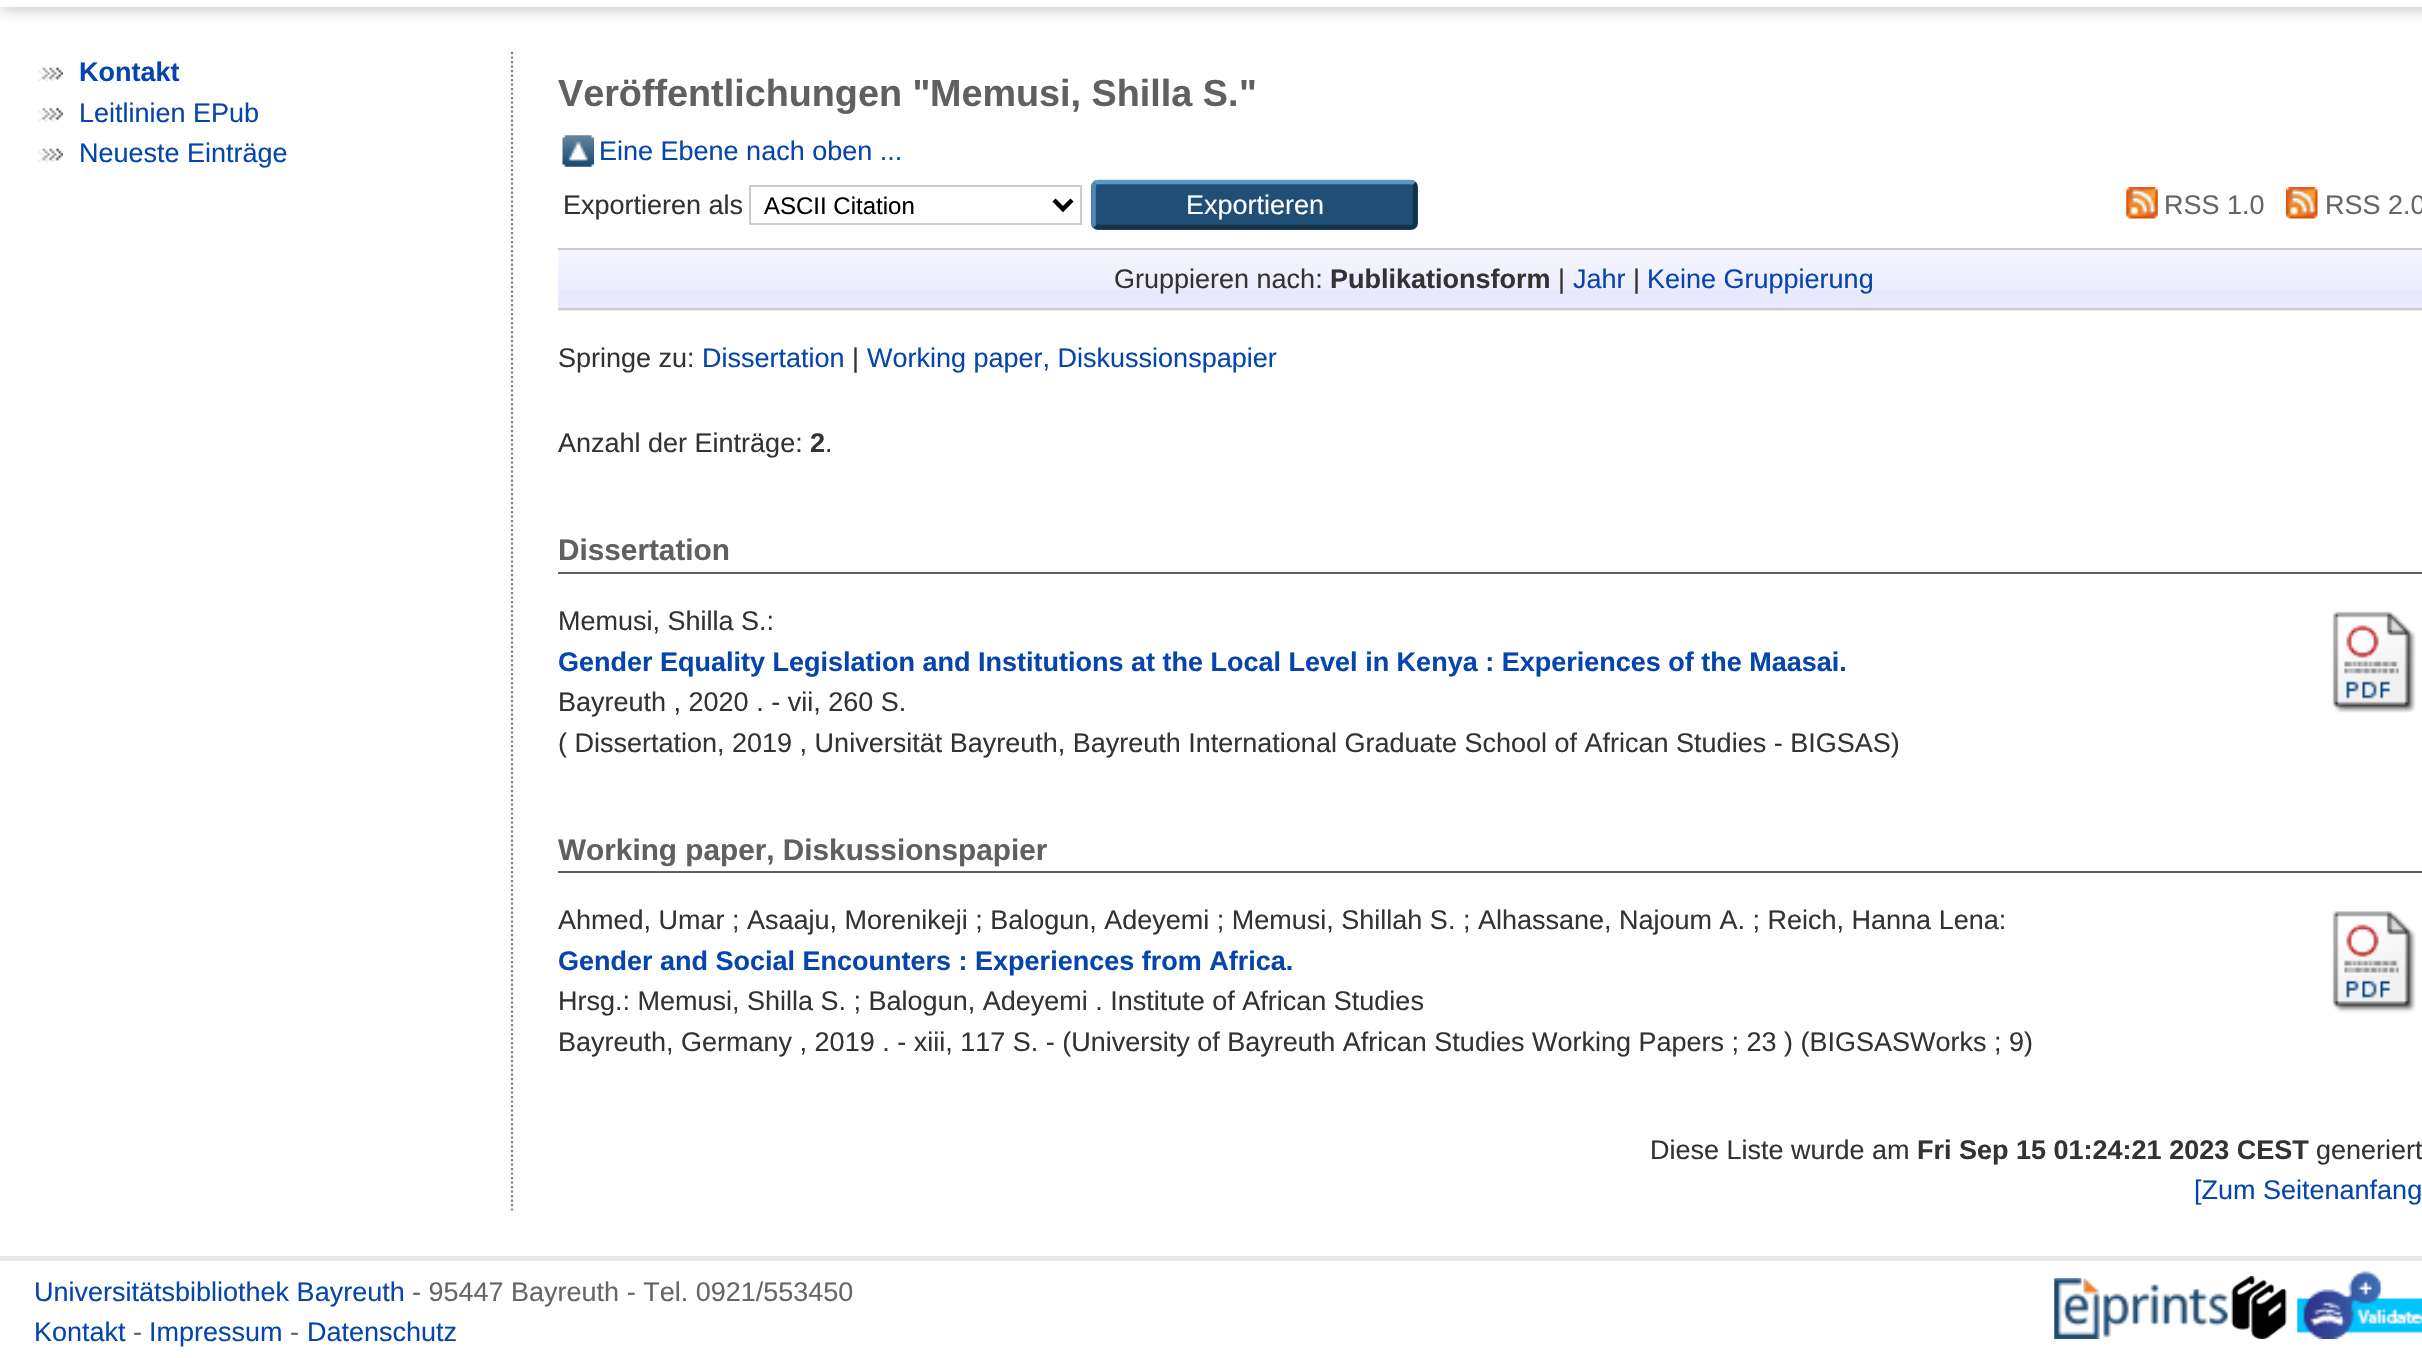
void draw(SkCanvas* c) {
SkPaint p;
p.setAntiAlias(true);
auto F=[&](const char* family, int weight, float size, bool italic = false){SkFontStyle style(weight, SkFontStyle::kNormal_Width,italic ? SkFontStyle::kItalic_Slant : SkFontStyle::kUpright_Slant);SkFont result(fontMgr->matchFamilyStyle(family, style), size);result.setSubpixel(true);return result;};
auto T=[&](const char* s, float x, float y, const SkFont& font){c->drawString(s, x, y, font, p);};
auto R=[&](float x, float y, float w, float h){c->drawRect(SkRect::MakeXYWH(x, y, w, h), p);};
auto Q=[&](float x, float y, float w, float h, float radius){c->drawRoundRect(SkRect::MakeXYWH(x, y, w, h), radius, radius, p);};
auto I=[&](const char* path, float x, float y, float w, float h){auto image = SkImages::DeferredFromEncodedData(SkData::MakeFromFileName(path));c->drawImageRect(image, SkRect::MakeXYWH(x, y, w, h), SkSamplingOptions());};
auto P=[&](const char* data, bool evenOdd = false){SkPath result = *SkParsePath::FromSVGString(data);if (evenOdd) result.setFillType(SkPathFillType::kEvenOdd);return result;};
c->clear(0xffffffff);
p.setColor(0x4d646464);
p.setMaskFilter(SkMaskFilter::MakeBlur(kNormal_SkBlurStyle, 7));
c->drawRect(SkRect::MakeXYWH(0,-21,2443,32),p);
p.setMaskFilter(nullptr);
p.setColor(0xffffffff);
R(0,0,2422,7);
I("1.png",38,67,25,15);
auto f1 = F("Liberation Sans",700,27);
p.setColor(0xff0645ad);
T("Kontakt",79,81,f1);
I("2.png",38,108,25,14);
auto f2 = F("Liberation Sans",400,27);
T("Leitlinien EPub",79,122,f2);
I("1.png",38,148,25,15);
T("Neueste Einträge",79,162,f2);
p.setStroke(true);
p.setStrokeWidth(2.2);
p.setColor(0xff808080);
p.setPathEffect(SkDashPathEffect::Make({{2.25f,2.25f}}, 0));
c->drawPath(P("M512 52v1158.5"),p);
p.setPathEffect(nullptr);
auto f3 = F("Liberation Sans",700,37.75);
p.setStroke(false);
p.setColor(0xff606060);
T("Veröffentlichungen \"",558,106,f3);
T("Memusi, Shilla S.",930,106,f3);
T("\"",1239,106,f3);
I("3.png",562,135,32,32);
p.setColor(0xff0645ad);
T("Eine Ebene nach oben ...",599,160,f2);
p.setColor(0xff333333);
T("Exportieren als",563,214,f2);
p.setStroke(true);
p.setStrokeWidth(2);
p.setColor(0xffcccccc);
c->drawRect(SkRect::MakeXYWH(750,186,331,38),p);
p.setStrokeWidth(4.5);
p.setColor(0xff000000);
c->drawPath(P("M1054 200l9 9l9-9"),p);
auto f4 = F("Liberation Sans",400,24);
p.setStroke(false);
T("ASCII Citation",764,214,f4);
p.setColor(0xff1f4f76);
Q(1091,180,327,50,7);
p.setStroke(true);
p.setColor(0xff5b97c7);
c->drawPath(P("M1095 183.5c.5-1 2-1.5 3-1.5h313c1 0 2 .5 3 1.5"),p);
p.setColor(0xff13324a);
c->drawPath(P("M1414 183.5c2 2.5 1 7 1 9.5v24c0 3 1.5 10-4 10h-313l-3-1"),p);
p.setColor(0xff5287b3);
c->drawPath(P("M1095 226c-1-1-1.5-2-1.5-3v-36c0-1.5 .5-2.5 1.5-3.5"),p);
p.setStroke(false);
p.setColor(0xffffffff);
T("Exportieren",1186,214,f2);
I("4.png",2126,187,32,32);
p.setColor(0xff666666);
T("RSS 1.0",2164,214,f2);
I("5.png",2286,187,32,32);
T("RSS 2.0",2325,214,f2);
p.setColor(0xffe8e8ff);
R(558,250,1864,61);
I("6.png",558,250,1864,40);
p.setColor(0xffcccccc);
R(558,248,1864,2);
R(558,308,1864,2);
p.setColor(0xff333333);
T("Gruppieren nach:",1114,288,f2);
T("Publikationsform",1330,288,f1);
T("|",1558,288,f2);
p.setColor(0xff0645ad);
T("Jahr",1573,288,f2);
p.setColor(0xff333333);
T("|",1633,288,f2);
p.setColor(0xff0645ad);
T("Keine Gruppierung",1647,288,f2);
p.setColor(0xff333333);
T("Springe zu:",558,367,f2);
p.setColor(0xff0645ad);
T("Dissertation",702,367,f2);
p.setColor(0xff333333);
T("|",852,367,f2);
p.setColor(0xff0645ad);
T("Working paper, Diskussionspapier",867,367,f2);
p.setColor(0xff333333);
T("Anzahl der Einträge:",558,452,f2);
T("2",810,452,f1);
T(".",825,452,f2);
p.setColor(0xff606060);
R(558,572,1864,2);
auto f5 = F("Liberation Sans",700,29.75);
T("Dissertation",558,560,f5);
p.setColor(0xff333333);
T("Memusi, Shilla S.:",558,630,f2);
p.setColor(0xff0645ad);
T("Gender Equality Legislation and Institutions at the Local Level in Kenya : Experiences of the Maasai.",558,671,f1);
p.setColor(0xff333333);
T("Bayreuth , 2020 . - vii, 260 S.",558,711,f2);
T("( Dissertation, 2019 , Universität Bayreuth, Bayreuth International Graduate School of African Studies - BIGSAS)",558,752,f2);
I("7.png",2332,611,84,102);
p.setColor(0xff606060);
R(558,871,1864,2);
T("Working paper, Diskussionspapier",558,860,f5);
p.setColor(0xff333333);
T("Ahmed, Umar ; Asaaju, Morenikeji ; Balogun, Adeyemi ; Memusi, Shillah S. ; Alhassane, Najoum A. ; Reich, Hanna Lena:",558,929,f2);
p.setColor(0xff0645ad);
T("Gender and Social Encounters : Experiences from Africa.",558,970,f1);
p.setColor(0xff333333);
T("Hrsg.: Memusi, Shilla S. ; Balogun, Adeyemi . Institute of African Studies",558,1010,f2);
T("Bayreuth, Germany , 2019 . - xiii, 117 S. - (University of Bayreuth African Studies Working Papers ; 23 ) (BIGSASWorks ; 9)",558,1051,f2);
I("8.png",2332,911,84,102);
T("Diese Liste wurde am",1650,1159,f2);
T("Fri Sep 15 01:24:21 2023 CEST",1917,1159,f1);
T("generiert",2316,1159,f2);
p.setColor(0xff0645ad);
T("[Zum Seitenanfang",2194,1199,f2);
p.setColor(0xffe6e6e6);
R(0,1256,2422,5);
p.setColor(0xff0645ad);
T("Universitätsbibliothek Bayreuth",34,1301,f2);
p.setColor(0xff666666);
T("- 95447 Bayreuth - Tel. 0921/553450",412,1301,f2);
p.setColor(0xff0645ad);
T("Kontakt",34,1341,f2);
p.setColor(0xff666666);
T("-",133,1341,f2);
p.setColor(0xff0645ad);
T("Impressum",149,1341,f2);
p.setColor(0xff666666);
T("-",290,1341,f2);
p.setColor(0xff0645ad);
T("Datenschutz",307,1341,f2);
I("9.png",2054,1278,174,61);
I("10.png",2231,1276,56,63);
I("11.png",2297,1271,125,68);
}
